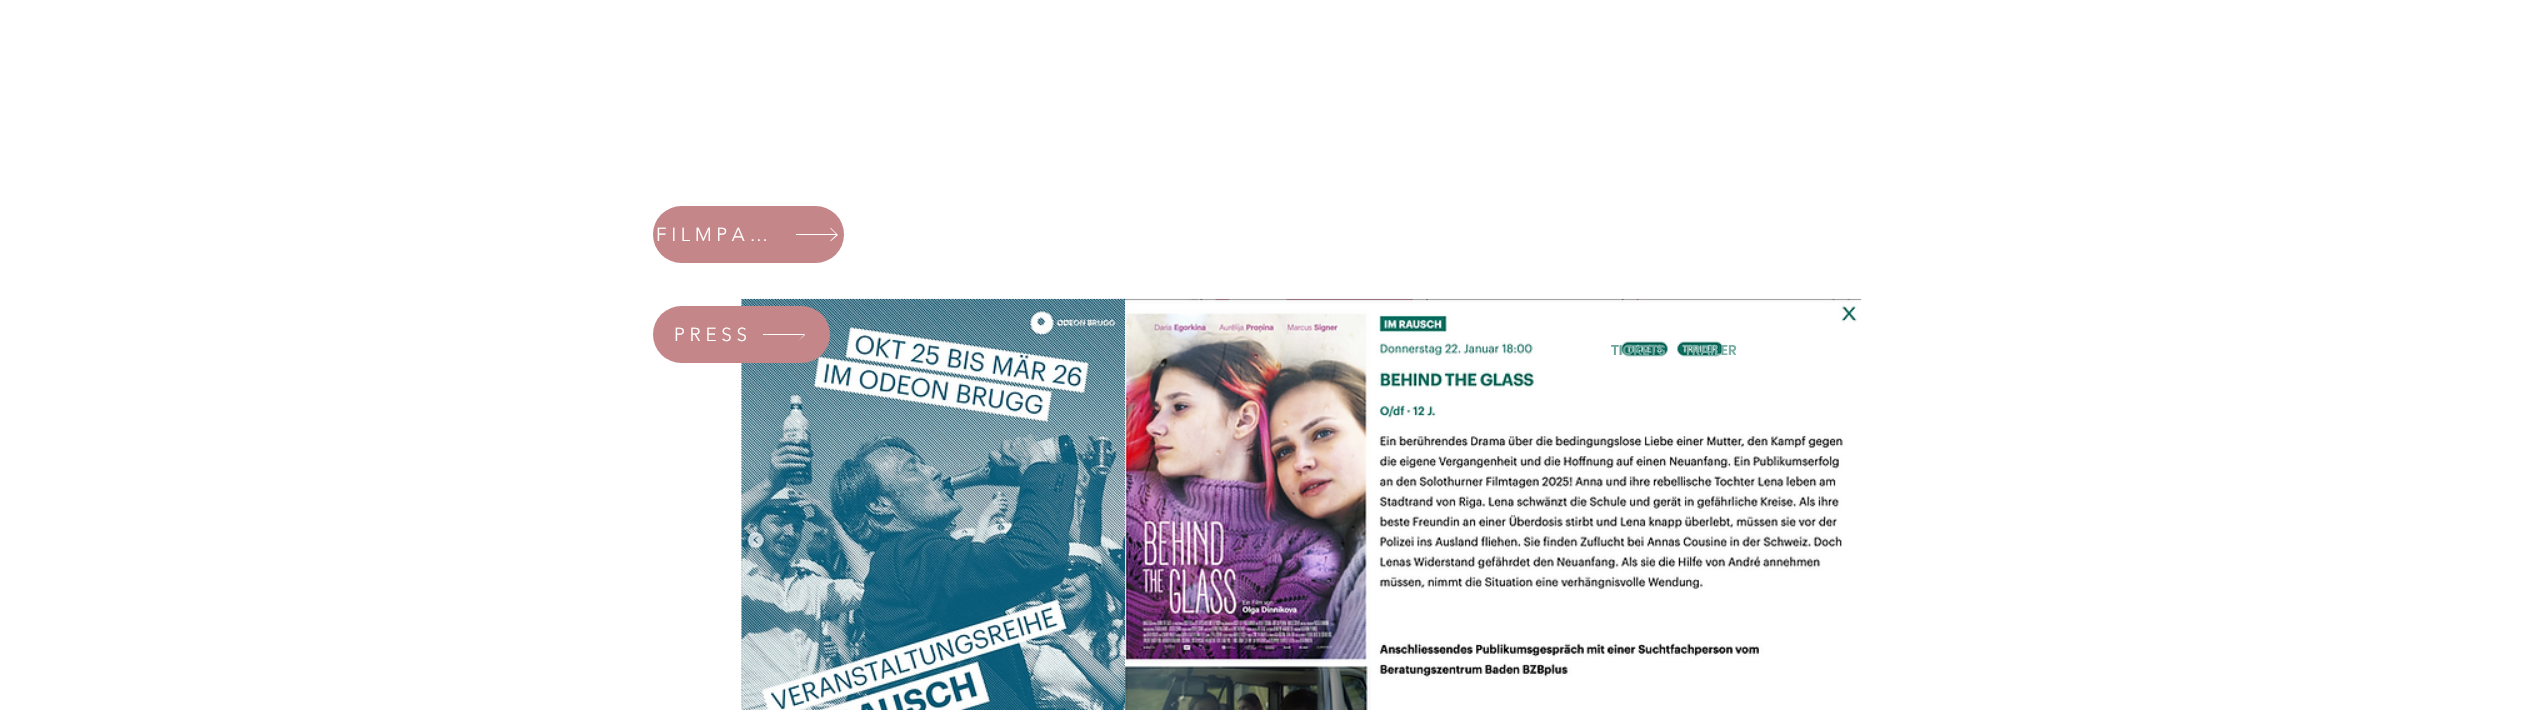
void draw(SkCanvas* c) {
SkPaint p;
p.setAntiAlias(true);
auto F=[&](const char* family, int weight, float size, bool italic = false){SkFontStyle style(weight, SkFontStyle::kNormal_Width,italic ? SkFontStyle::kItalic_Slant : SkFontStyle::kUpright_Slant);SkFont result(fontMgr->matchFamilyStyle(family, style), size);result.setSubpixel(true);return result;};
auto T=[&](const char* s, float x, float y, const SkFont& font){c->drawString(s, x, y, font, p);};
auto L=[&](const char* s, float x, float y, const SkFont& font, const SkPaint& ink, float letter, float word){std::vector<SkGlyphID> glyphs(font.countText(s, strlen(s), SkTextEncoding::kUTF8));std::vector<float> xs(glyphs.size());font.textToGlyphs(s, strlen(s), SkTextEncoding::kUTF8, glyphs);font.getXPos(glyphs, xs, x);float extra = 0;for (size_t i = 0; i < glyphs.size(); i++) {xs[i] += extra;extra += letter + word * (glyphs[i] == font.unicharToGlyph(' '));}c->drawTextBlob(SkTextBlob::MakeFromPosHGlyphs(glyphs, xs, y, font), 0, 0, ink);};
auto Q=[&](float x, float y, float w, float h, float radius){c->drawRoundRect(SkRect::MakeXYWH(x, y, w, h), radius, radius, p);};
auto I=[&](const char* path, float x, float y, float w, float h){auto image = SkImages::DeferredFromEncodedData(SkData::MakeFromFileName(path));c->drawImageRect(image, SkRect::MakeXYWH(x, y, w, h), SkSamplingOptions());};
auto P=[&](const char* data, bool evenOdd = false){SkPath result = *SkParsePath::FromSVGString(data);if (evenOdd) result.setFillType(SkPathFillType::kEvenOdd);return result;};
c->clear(0xffffffff);
p.setColor(0xffc48688);
Q(653,206,191,57,28.5);
auto f1 = F("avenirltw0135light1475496",300,18.75);
p.setColor(0xffffffff);
L("FILMPA…",656,241,f1,p,4.75,0);
c->drawPath(P("M831 228h-1l6 6h-40v1h40l-6 6h1l7-6z"),p);
I("2.png",1111,298,751,412);
I("1.png",741,298,384,412);
p.setColor(0xffc48688);
Q(653,306,177,57,28.5);
p.setColor(0xffffffff);
L("PRESS",674,341,f1,p,4.75,0);
c->drawPath(P("M798 328l6 6h-41v1h41l-6 6l7-6z"),p);
auto f2 = F("Poppins",600,14);
p.setColor(0xff6ca59c);
T("TICKETS",1611,355,f2);
p.setColor(0xff7dafa7);
T("TRAILER",1684,355,f2);
}
